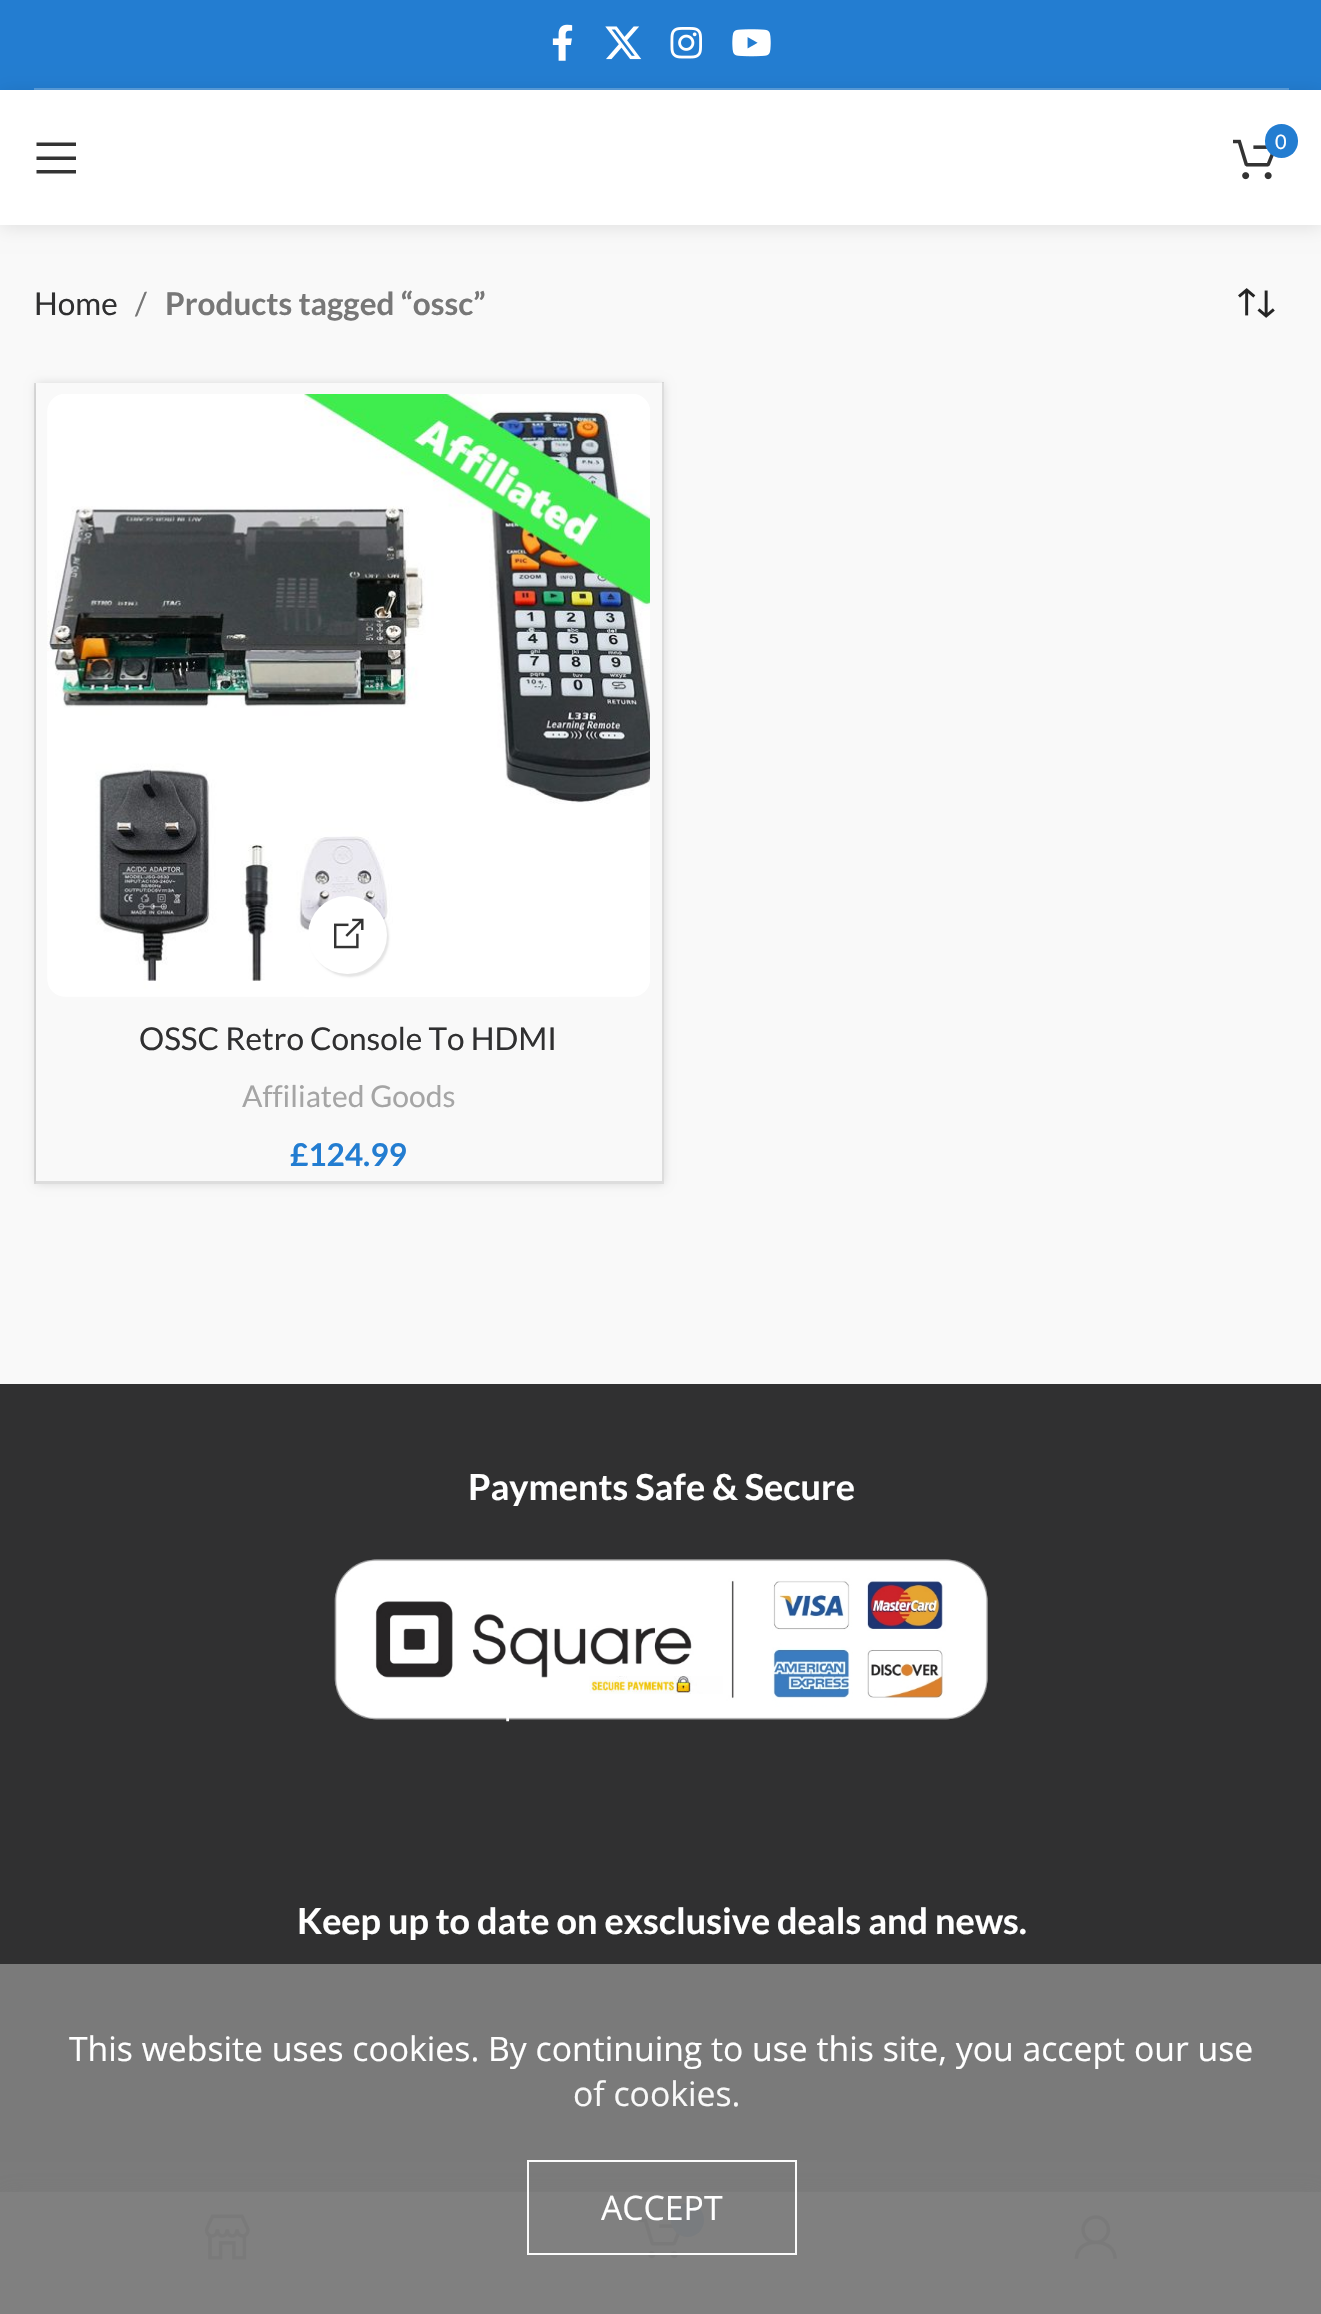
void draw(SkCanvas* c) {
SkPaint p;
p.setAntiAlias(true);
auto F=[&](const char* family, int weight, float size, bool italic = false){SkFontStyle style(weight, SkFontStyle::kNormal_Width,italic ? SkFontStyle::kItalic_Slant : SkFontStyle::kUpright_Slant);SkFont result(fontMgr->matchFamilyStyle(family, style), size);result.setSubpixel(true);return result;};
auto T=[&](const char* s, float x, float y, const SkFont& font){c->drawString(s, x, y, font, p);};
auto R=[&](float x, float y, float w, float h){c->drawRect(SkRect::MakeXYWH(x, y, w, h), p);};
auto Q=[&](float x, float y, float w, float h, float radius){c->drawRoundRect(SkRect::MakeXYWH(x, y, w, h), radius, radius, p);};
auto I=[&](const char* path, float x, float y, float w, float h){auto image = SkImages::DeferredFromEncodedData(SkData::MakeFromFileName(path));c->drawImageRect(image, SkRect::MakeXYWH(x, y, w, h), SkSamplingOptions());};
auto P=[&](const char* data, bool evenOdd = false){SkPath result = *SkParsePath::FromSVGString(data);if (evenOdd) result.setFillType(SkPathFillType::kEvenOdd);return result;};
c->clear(0xffffffff);
p.setColor(0xff237dd1);
R(0,0,1321,90);
p.setColor(0xff5a9edd);
R(34,88,1255,2);
I("1.png",552,24,21,37);
I("2.png",605,26,37,34);
I("3.png",670,27,32,32);
I("4.png",732,29,39,28);
p.setColor(0xfff9f9f9);
R(0,225,1321,1159);
c->save();
c->clipPath(P("M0 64h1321v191h-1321zm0 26h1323v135h-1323z",true),true);
p.setColor(0x1a000000);
p.setMaskFilter(SkMaskFilter::MakeBlur(kNormal_SkBlurStyle, 9));
c->drawRect(SkRect::MakeXYWH(0,92,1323,135),p);
p.setMaskFilter(nullptr);
c->restore();
p.setColor(0xff333333);
c->drawPath(P("M36.5 146h39.5v-3.5h-39.5zm0 14h39.5v-3.5h-39.5zm0 13.5h39.5v-3.5h-39.5z"),p);
I("5.png",1233,139,41,41);
p.setColor(0xff237dd1);
Q(1265,124,33,34,16.5);
auto f1 = F("Lato",400,20);
p.setColor(0xffffffff);
T("0",1275,149,f1);
auto f2 = F("Lato",400,31.5);
p.setColor(0xff303031);
T("Home",34,315,f2);
p.setColor(0xff777777);
T("/",135,315,f2);
auto f3 = F("Lato",700,31.5);
T("Products tagged “ossc”",165,315,f3);
I("6.png",1238,288,37,30);
p.setColor(0xffdfdfdf);
R(34,383,2,801);
c->save();
c->clipPath(P("M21 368h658v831h-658zm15 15h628v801h-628z",true),true);
p.setColor(0x1f000000);
p.setMaskFilter(SkMaskFilter::MakeBlur(kNormal_SkBlurStyle, 4.5));
c->drawRect(SkRect::MakeXYWH(36,383,628,801),p);
p.setMaskFilter(nullptr);
c->restore();
p.setColor(0x1c000000);
c->drawPath(P("M664 382v802l-2-3v-799z"),p);
c->drawPath(P("M664 1184h-628v-3h626z"),p);
I("7.png",47,394,603,603);
p.setColor(0x1a000000);
p.setMaskFilter(SkMaskFilter::MakeBlur(kNormal_SkBlurStyle, 1));
c->drawRoundRect(SkRect::MakeXYWH(311,898,78,79),39,39,p);
p.setMaskFilter(nullptr);
p.setColor(0xffffffff);
Q(308,896,79,78,39);
I("8.png",334,918,30,31);
p.setColor(0xff303031);
T("OSSC Retro Console To HDMI",139,1050,f2);
auto f4 = F("Lato",400,30);
p.setColor(0xffa5a5a5);
T("Affiliated Goods",242,1107,f4);
p.setColor(0xff237dd1);
T("£124.99",290,1166,f3);
p.setColor(0xff303031);
R(0,1384,1321,580);
p.setColor(0xff7a7a7a);
R(0,1964,1321,228);
auto f5 = F("Lato",700,36);
p.setColor(0xffffffff);
T("Payments Safe & Secure",468,1500,f5);
I("9.png",334,1559,654,163);
T("Keep up to date on exsclusive deals and news.",297,1934,f5);
auto f6 = F("Open Sans",400,33.75);
T("This website uses cookies. By continuing to use this site, you accept our use",69,2061,f6);
p.setColor(0xfff9f9f9);
T("of cookies.",573,2106,f6);
p.setColor(0x1f787878);
p.setMaskFilter(SkMaskFilter::MakeBlur(kNormal_SkBlurStyle, 10));
c->drawRect(SkRect::MakeXYWH(0,2192,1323,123),p);
p.setMaskFilter(nullptr);
p.setColor(0xff808080);
R(0,2192,1321,122);
I("11.png",639,2218,41,41);
p.setColor(0xff797c7f);
Q(671,2203,33,34,16.5);
p.setStroke(true);
p.setStrokeWidth(2);
p.setColor(0xf7ffffff);
c->drawRect(SkRect::MakeXYWH(528,2161,268,93),p);
p.setStroke(false);
p.setColor(0xffffffff);
T("ACCEPT",601,2220,f6);
I("10.png",204,2214,46,46);
I("12.png",1074,2215,43,44);
}
